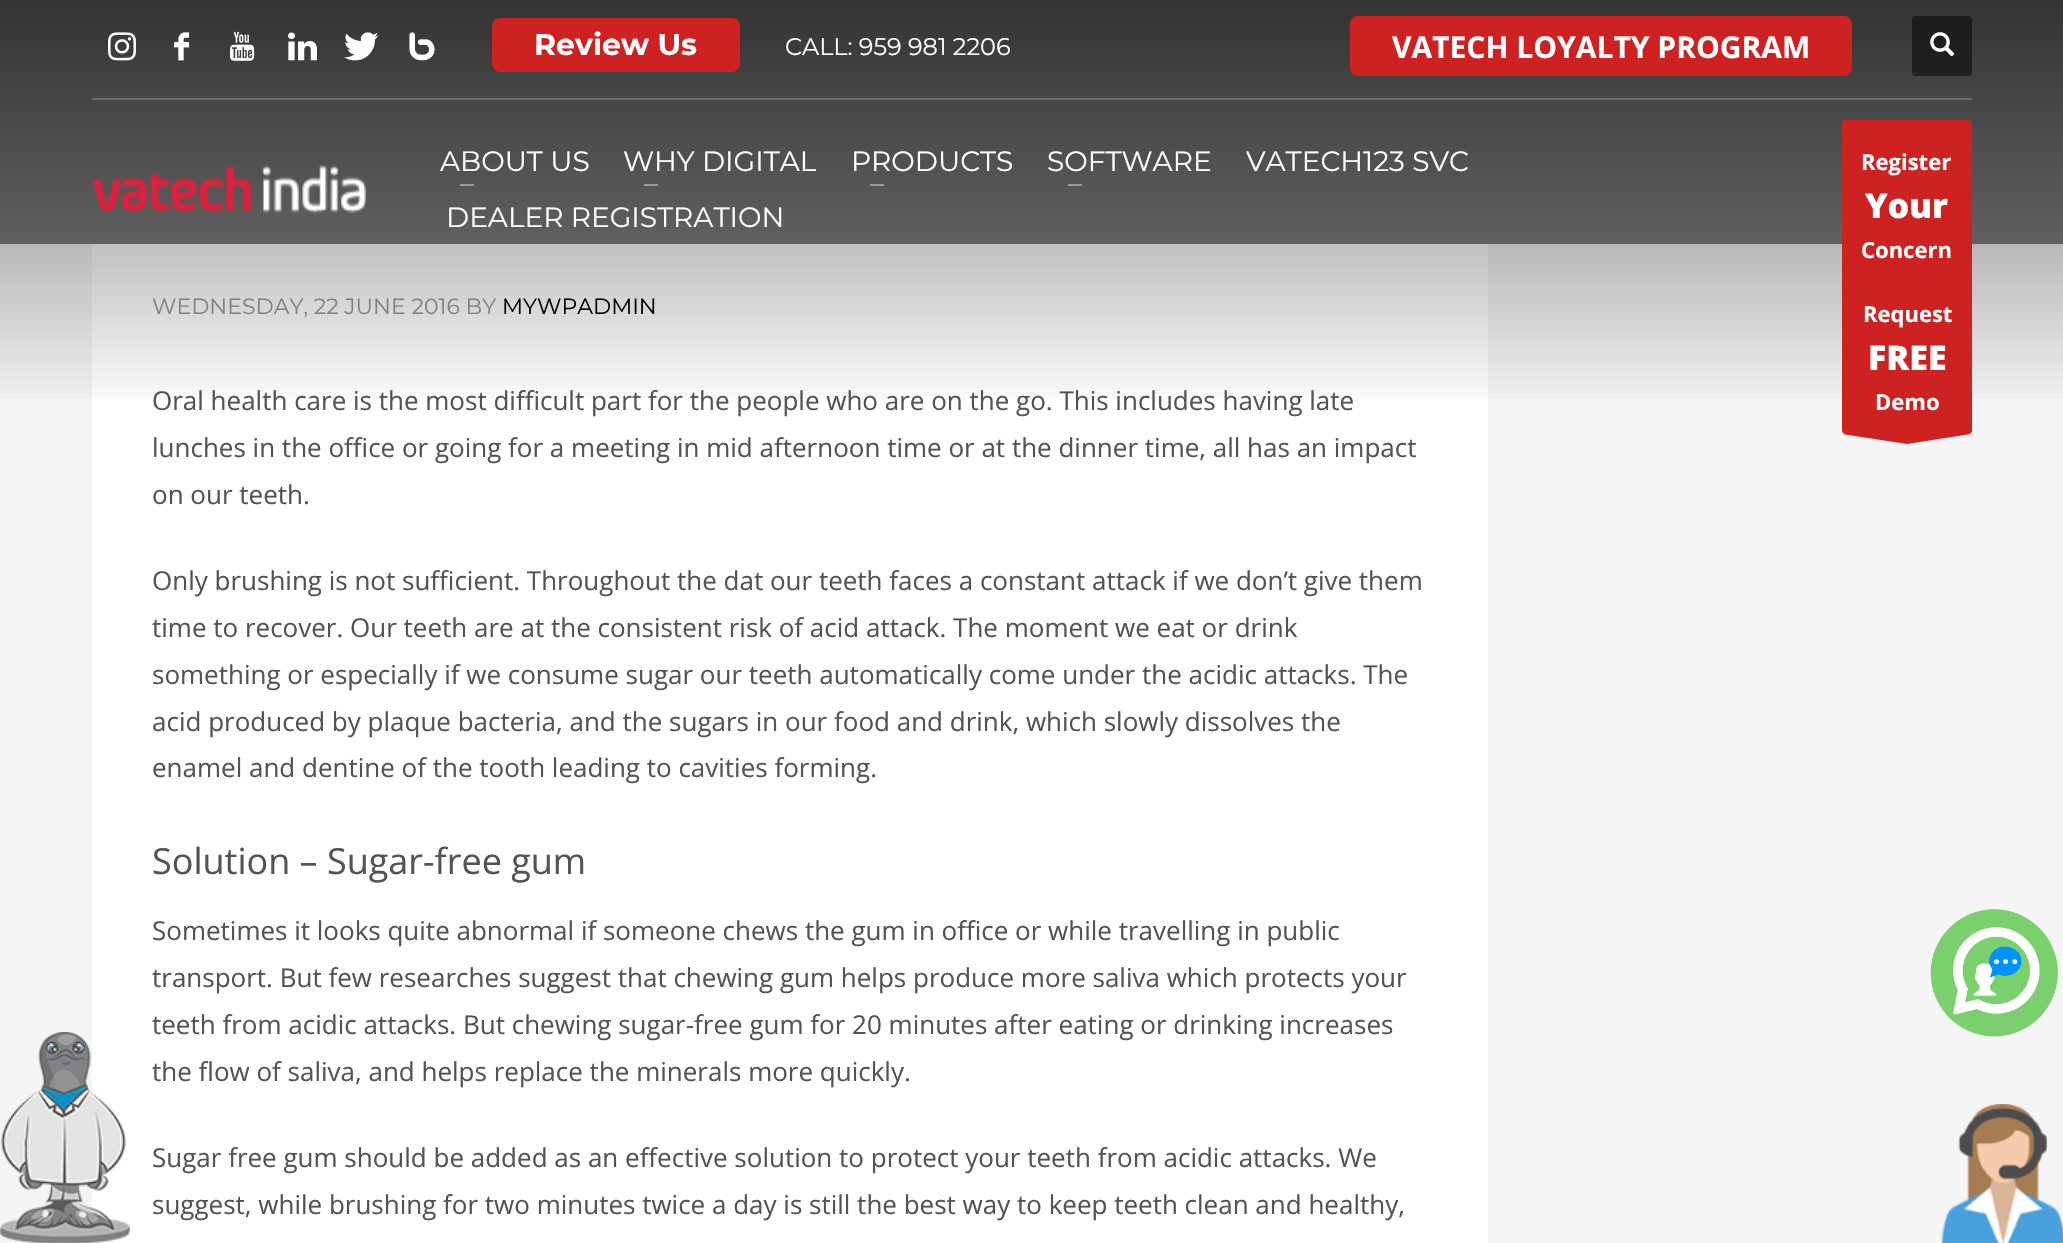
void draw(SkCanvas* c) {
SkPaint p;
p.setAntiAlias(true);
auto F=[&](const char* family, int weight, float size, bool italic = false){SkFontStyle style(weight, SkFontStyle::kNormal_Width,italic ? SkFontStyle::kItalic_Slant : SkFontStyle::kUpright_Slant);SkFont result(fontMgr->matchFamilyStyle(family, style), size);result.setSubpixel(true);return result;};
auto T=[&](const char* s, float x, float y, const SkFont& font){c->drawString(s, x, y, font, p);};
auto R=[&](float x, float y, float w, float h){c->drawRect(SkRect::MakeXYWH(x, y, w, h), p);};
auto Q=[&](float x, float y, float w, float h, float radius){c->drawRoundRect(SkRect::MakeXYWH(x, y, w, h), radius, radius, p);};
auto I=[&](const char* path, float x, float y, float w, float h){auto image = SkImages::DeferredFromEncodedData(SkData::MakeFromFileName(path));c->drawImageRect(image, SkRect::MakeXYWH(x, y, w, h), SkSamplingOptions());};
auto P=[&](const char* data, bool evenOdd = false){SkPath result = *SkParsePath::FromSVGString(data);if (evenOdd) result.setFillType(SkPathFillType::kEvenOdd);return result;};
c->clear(0xfff5f5f5);
p.setColor(0xff808080);
R(0,0,2063,244);
p.setColor(0xffffffff);
R(92,244,1396,999);
auto f1 = F("Montserrat",400,22);
p.setColor(0xff9a9a9a);
T("WEDNESDAY, 22 JUNE 2016 BY",152,314,f1);
p.setColor(0xff000000);
T("MYWPADMIN",502,314,f1);
auto f2 = F("Open Sans",400,26);
p.setColor(0xff535353);
T("Oral health care is the most difficult part for the people who are on the go. This includes having late",152,410,f2);
{
const SkColor colors[] = {0x99000000,0x00000000};
const float stops[] = {0,1};
const SkPoint ends[] = {{1032,0}, {1032,414}};
p.setShader(SkGradientShader::MakeLinear(ends, colors, stops, 2, SkTileMode::kClamp));
p.setAlpha(255);
}
R(0,0,2063,399);
I("1.png",108,32,28,29);
I("2.png",174,32,16,29);
I("3.png",230,31,25,30);
I("4.png",288,32,29,29);
I("5.png",344,32,35,29);
I("6.png",409,32,26,29);
p.setShader(nullptr);
p.setColor(0xffcd2122);
Q(492,18,248,54,8);
auto f3 = F("Montserrat",700,30);
p.setColor(0xffffffff);
T("Review Us",534,55,f3);
auto f4 = F("Montserrat",400,24);
T("CALL: 959 981 2206",785,55,f4);
p.setColor(0xffcd2122);
Q(1350,16,502,60,8);
auto f5 = F("Open Sans",700,30);
p.setColor(0xffffffff);
T("VATECH LOYALTY PROGRAM",1392,58,f5);
p.setColor(0x80000000);
Q(1912,16,60,60,4);
I("7.png",1930,32,25,25);
p.setColor(0xff6b6b6b);
R(92,98,1880,2);
I("8.png",92,165,274,49);
auto f6 = F("Montserrat",400,28);
p.setColor(0xffffffff);
T("ABOUT US",440,171,f6);
p.setColor(0xff999999);
R(460,184,14,2);
p.setColor(0xffffffff);
T("WHY DIGITAL",623,171,f6);
p.setColor(0xff999999);
R(644,184,14,2);
p.setColor(0xffffffff);
T("PRODUCTS",851,171,f6);
p.setColor(0xff999999);
R(870,184,14,2);
p.setColor(0xffffffff);
T("SOFTWARE",1047,171,f6);
p.setColor(0xff999999);
R(1068,184,14,2);
p.setColor(0xffffffff);
T("VATECH123 SVC",1246,171,f6);
T("DEALER REGISTRATION",446,227,f6);
p.setColor(0xffcd2122);
Q(1842,120,130,162,4);
auto f7 = F("Open Sans",700,22);
p.setColor(0xffffffff);
T("Register",1861,170,f7);
auto f8 = F("Open Sans",800,34);
T("Your",1865,218,f8);
T("Concern",1861,258,f7);
p.setColor(0xffcd2122);
Q(1842,272,130,162,4);
p.setColor(0xffffffff);
T("Request",1863,322,f7);
T("FREE",1868,370,f8);
T("Demo",1875,410,f7);
p.setColor(0xffcd2122);
c->drawPath(P("M1971 434l-64 10l-65-10z",true),p);
p.setColor(0xff535353);
T("lunches in the office or going for a meeting in mid afternoon time or at the dinner time, all has an impact",152,457,f2);
T("on our teeth.",152,504,f2);
T("Only brushing is not sufficient. Throughout the dat our teeth faces a constant attack if we don’t give them",152,590,f2);
T("time to recover. Our teeth are at the consistent risk of acid attack. The moment we eat or drink",152,637,f2);
T("something or especially if we consume sugar our teeth automatically come under the acidic attacks. The",152,684,f2);
T("acid produced by plaque bacteria, and the sugars in our food and drink, which slowly dissolves the",152,731,f2);
T("enamel and dentine of the tooth leading to cavities forming.",152,777,f2);
auto f9 = F("Open Sans",400,36);
T("Solution – Sugar-free gum",152,874,f9);
T("Sometimes it looks quite abnormal if someone chews the gum in office or while travelling in public",152,940,f2);
T("transport. But few researches suggest that chewing gum helps produce more saliva which protects your",152,987,f2);
T("teeth from acidic attacks. But chewing sugar-free gum for 20 minutes after eating or drinking increases",152,1034,f2);
T("the flow of saliva, and helps replace the minerals more quickly.",152,1081,f2);
T("Sugar free gum should be added as an effective solution to protect your teeth from acidic attacks. We",152,1167,f2);
T("suggest, while brushing for two minutes twice a day is still the best way to keep teeth clean and healthy,",152,1214,f2);
I("9.png",1930,909,128,128);
I("10.png",0,1032,130,211);
I("11.png",1941,1104,122,139);
}
